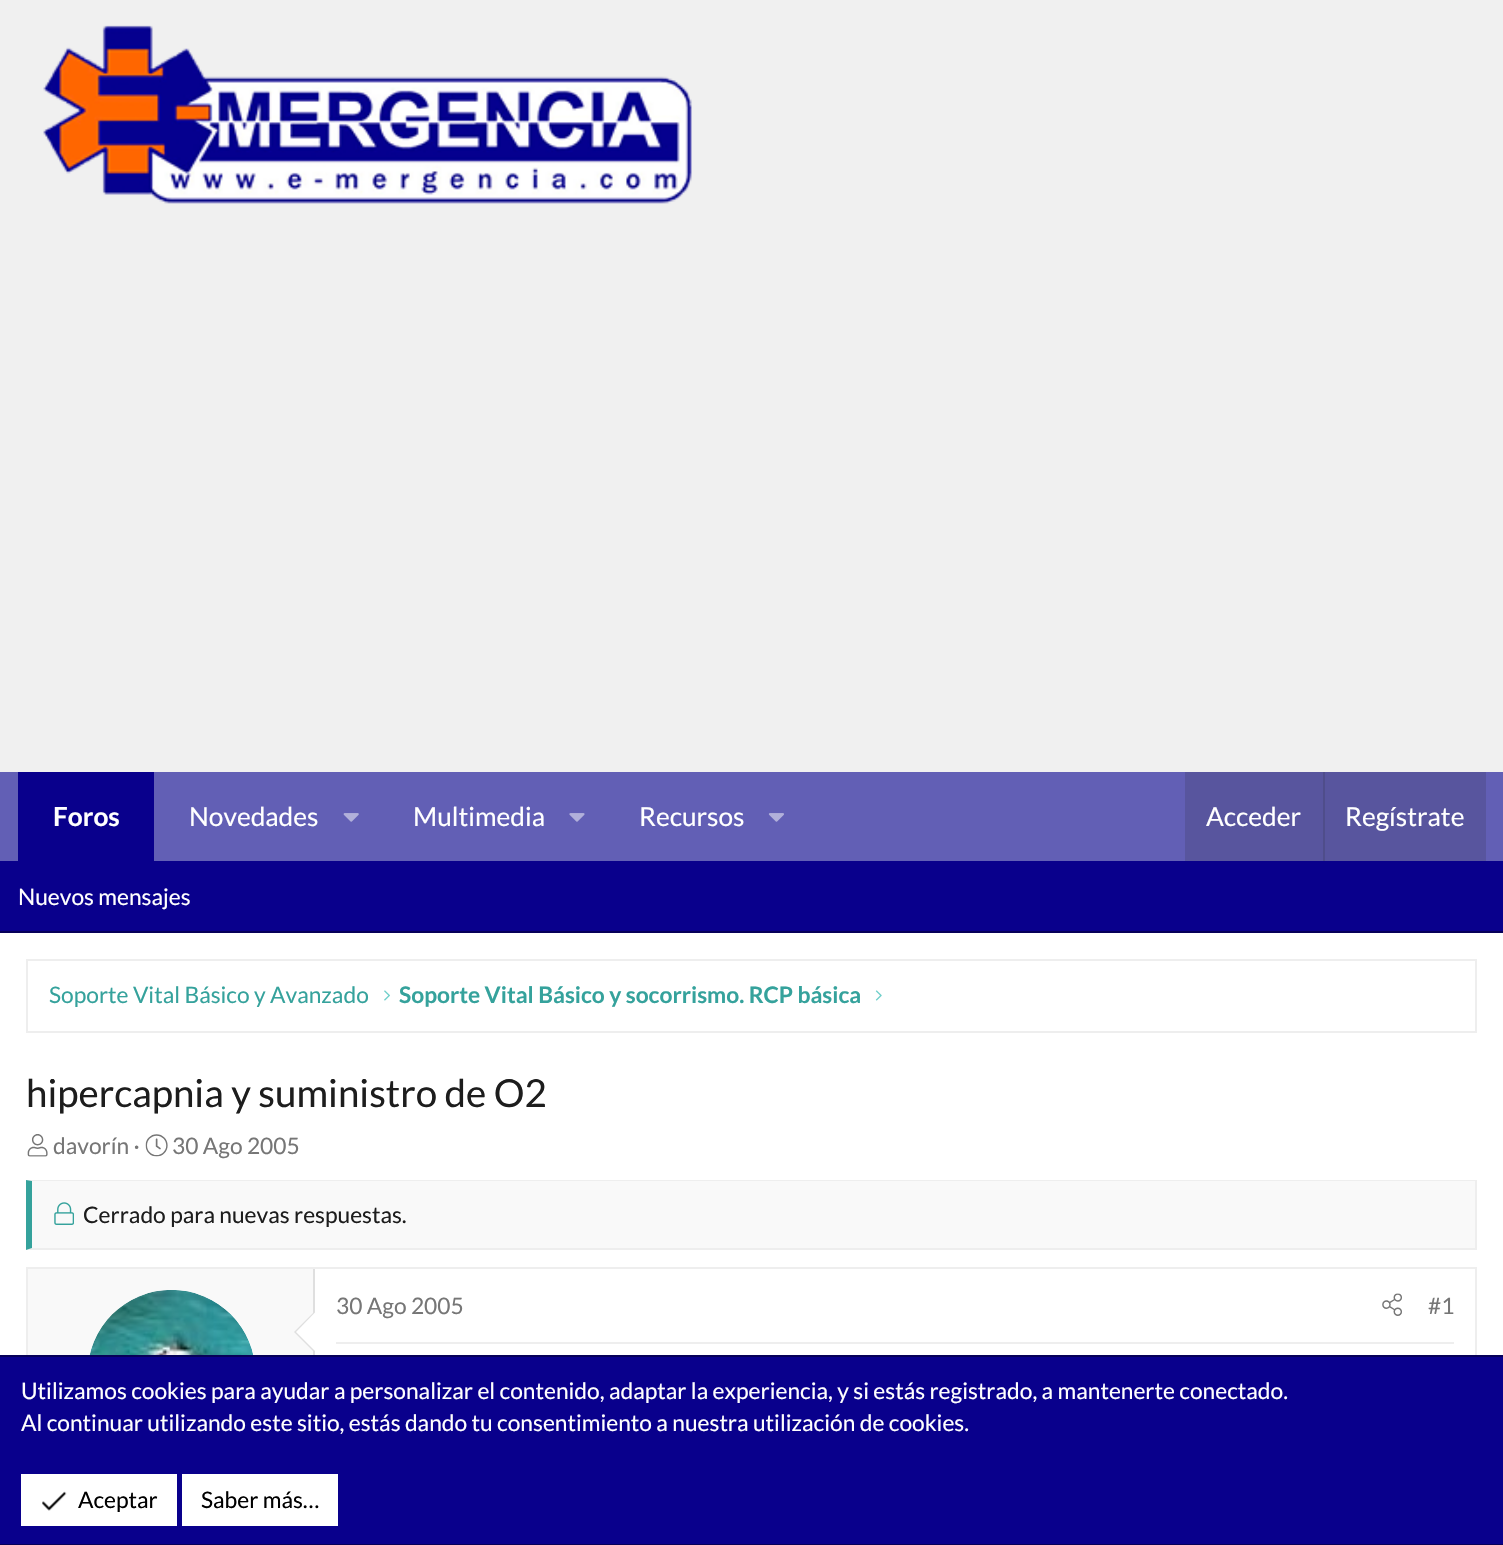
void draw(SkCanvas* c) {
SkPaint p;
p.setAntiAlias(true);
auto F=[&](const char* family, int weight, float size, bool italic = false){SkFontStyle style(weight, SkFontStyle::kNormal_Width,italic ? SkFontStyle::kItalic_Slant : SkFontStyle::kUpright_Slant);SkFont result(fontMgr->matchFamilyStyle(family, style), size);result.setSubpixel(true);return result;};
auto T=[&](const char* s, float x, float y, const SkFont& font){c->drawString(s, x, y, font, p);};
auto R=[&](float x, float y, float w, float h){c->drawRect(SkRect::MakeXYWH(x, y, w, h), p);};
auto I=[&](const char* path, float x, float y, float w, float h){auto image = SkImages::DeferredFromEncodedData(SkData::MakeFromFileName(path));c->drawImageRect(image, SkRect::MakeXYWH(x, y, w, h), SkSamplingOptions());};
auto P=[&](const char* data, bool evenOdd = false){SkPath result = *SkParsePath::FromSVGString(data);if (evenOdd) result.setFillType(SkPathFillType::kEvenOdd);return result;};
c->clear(0xfff0f0f0);
I("1.png",43,25,649,179);
p.setColor(0xff625fb5);
R(0,772,1503,89);
p.setColor(0xff09008c);
R(18,772,136,89);
auto f1 = F("Lato",700,26.25);
p.setColor(0xffffffff);
T("Foros",53,826,f1);
auto f2 = F("Lato",400,26.25);
T("Novedades",189,826,f2);
I("2.png",343,813,16,9);
T("Multimedia",413,826,f2);
I("3.png",569,813,16,9);
T("Recursos",639,826,f2);
I("4.png",768,813,16,9);
p.setColor(0xff58559e);
R(1185,772,301,89);
p.setColor(0xffffffff);
T("Acceder",1206,826,f2);
p.setColor(0xff4f4d8b);
R(1323,772,2,89);
p.setColor(0xffffffff);
T("Regístrate",1345,826,f2);
p.setColor(0xff09008c);
R(0,861,1503,70);
p.setColor(0xff060059);
R(0,931,1503,2);
auto f3 = F("Lato",400,22.75);
p.setColor(0xffffffff);
T("Nuevos mensajes",18,905,f3);
R(0,933,1503,422);
p.setStroke(true);
p.setStrokeWidth(2);
p.setColor(0xffeeeeee);
c->drawRect(SkRect::MakeXYWH(27,960,1449,72),p);
p.setStroke(false);
p.setColor(0xff35a29c);
T("Soporte Vital Básico y Avanzado",49,1003,f3);
I("5.png",384,990,6,11);
auto f4 = F("Lato",700,22.75);
T("Soporte Vital Básico y socorrismo. RCP básica",399,1003,f4);
I("6.png",875,990,7,11);
auto f5 = F("Lato",400,38.5);
p.setColor(0xff1d1d1d);
T("hipercapnia y suministro de O2",26,1107,f5);
I("7.png",27,1134,21,23);
p.setColor(0xff767676);
T("davorín ·",53,1154,f3);
I("8.png",145,1134,23,23);
T("30 Ago 2005",172,1154,f3);
p.setColor(0xfff9f9f9);
R(32,1181,1443,67);
p.setColor(0xffeeeeee);
c->drawPath(P("M26 1180h1451l-2 1h-1443z"),p);
R(1475,1180,2,70);
c->drawPath(P("M1477 1250h-1451l6-2h1443z"),p);
p.setColor(0xff35a29c);
c->drawPath(P("M26 1250v-70l6 1v67z"),p);
I("9.png",54,1202,20,23);
p.setColor(0xff1d1d1d);
T("Cerrado para nuevas respuestas.",83,1223,f3);
p.setStroke(true);
p.setColor(0xffeeeeee);
c->drawRect(SkRect::MakeXYWH(27,1268,1449,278),p);
p.setStroke(false);
p.setColor(0xfff9f9f9);
R(28,1269,285,86);
p.setColor(0xffdfdfdf);
R(313,1269,2,86);
p.setColor(0xffffffff);
c->drawCircle(172,1374,84,p);
I("10.png",89,1290,165,65);
p.setColor(0xffdfdfdf);
c->drawPath(P("M315 1311v42l-21-21z"),p);
p.setColor(0xffffffff);
c->drawPath(P("M315 1312.5v38.5l-19-19z"),p);
p.setColor(0xffeeeeee);
R(336,1342,1118,2);
p.setColor(0xff767676);
T("30 Ago 2005",336,1314,f3);
I("11.png",1382,1293,20,23);
T("#1",1428,1314,f3);
p.setColor(0xff09008c);
R(0,1357,1503,187);
p.setColor(0xff060059);
R(0,1355,1503,2);
R(0,1544,1503,1);
p.setColor(0xffffffff);
T("Utilizamos cookies para ayudar a personalizar el contenido, adaptar la experiencia, y si estás registrado, a mantenerte conectado.",21,1399,f3);
T("Al continuar utilizando este sitio, estás dando tu consentimiento a nuestra utilización de cookies.",21,1431,f3);
R(21,1474,156,52);
I("12.png",42,1491,25,20);
p.setColor(0xff000000);
T("Aceptar",78,1508,f3);
p.setColor(0xffffffff);
R(182,1474,156,52);
p.setColor(0xff000000);
T("Saber más…",201,1508,f3);
}
